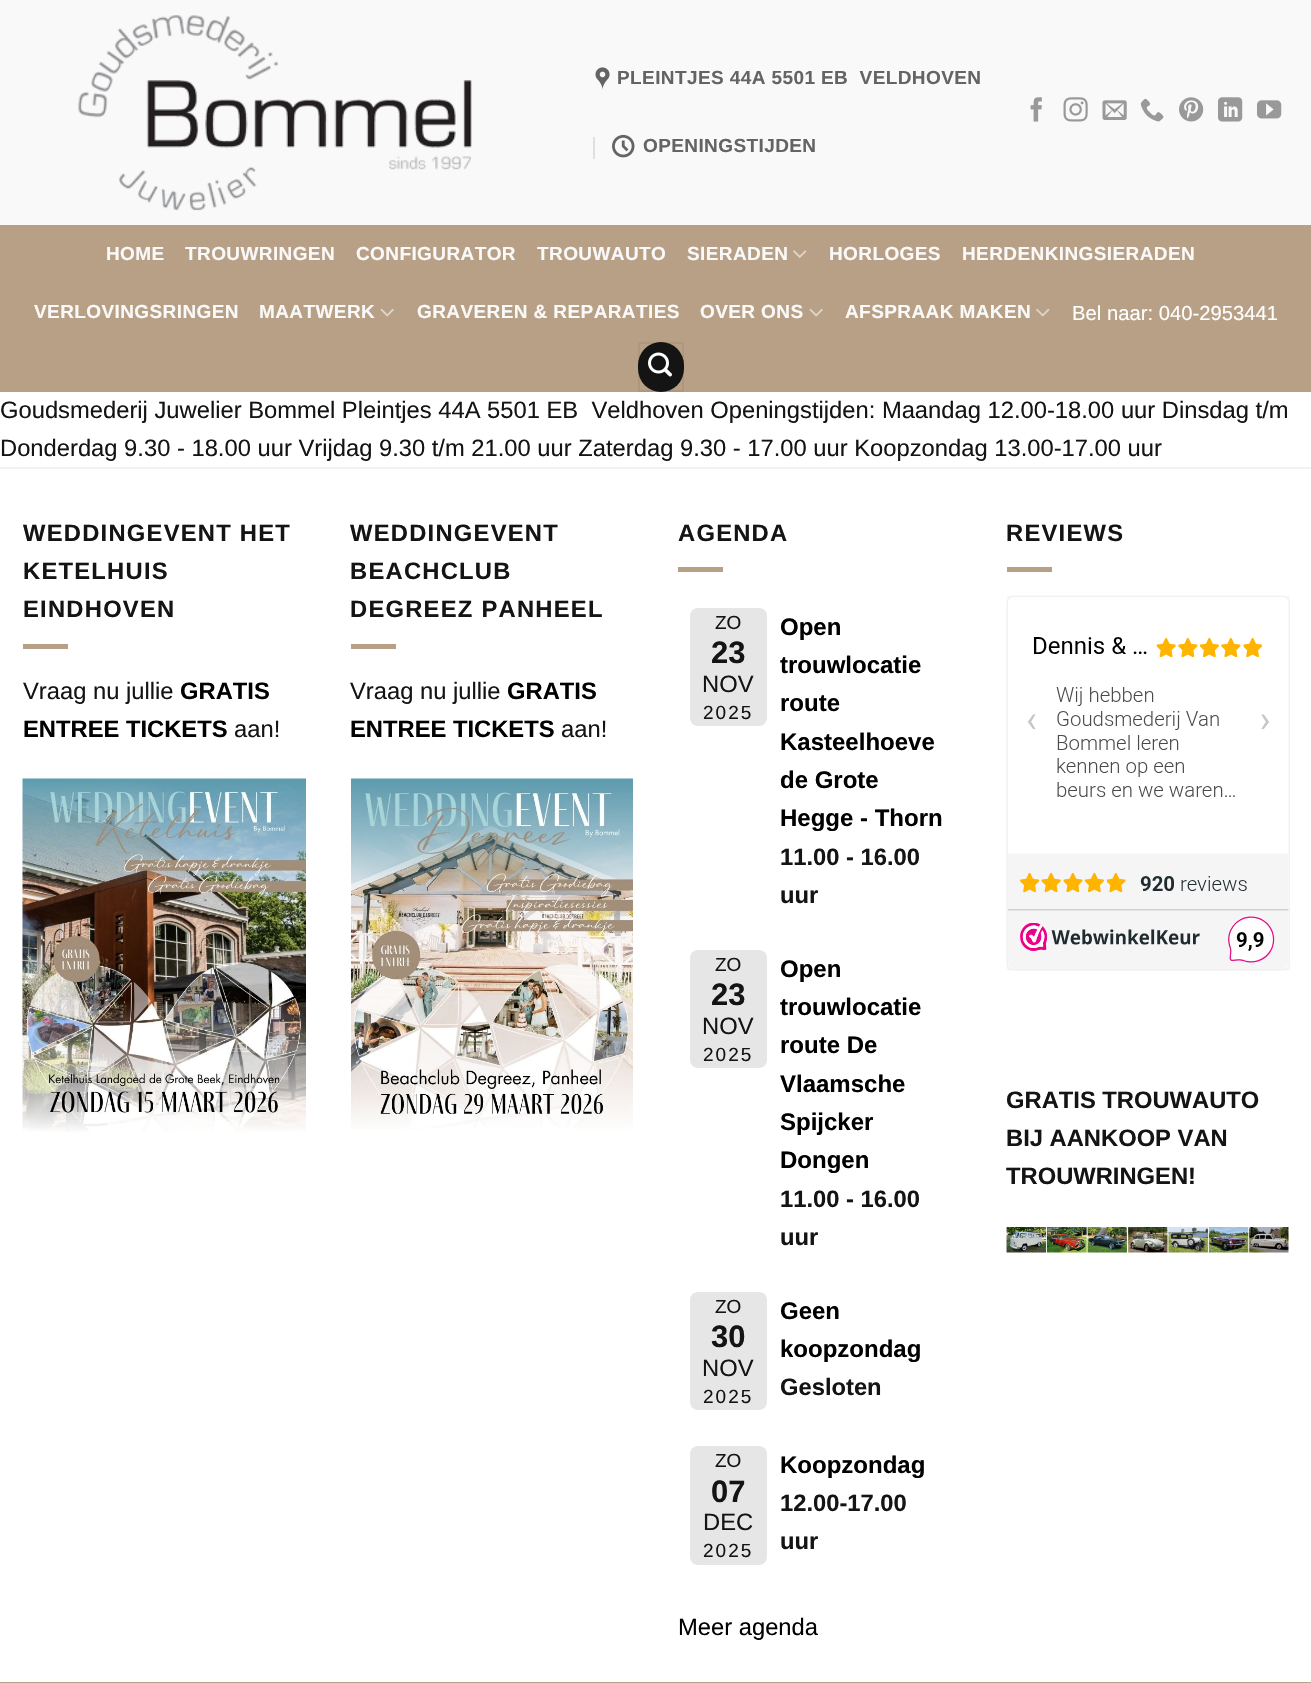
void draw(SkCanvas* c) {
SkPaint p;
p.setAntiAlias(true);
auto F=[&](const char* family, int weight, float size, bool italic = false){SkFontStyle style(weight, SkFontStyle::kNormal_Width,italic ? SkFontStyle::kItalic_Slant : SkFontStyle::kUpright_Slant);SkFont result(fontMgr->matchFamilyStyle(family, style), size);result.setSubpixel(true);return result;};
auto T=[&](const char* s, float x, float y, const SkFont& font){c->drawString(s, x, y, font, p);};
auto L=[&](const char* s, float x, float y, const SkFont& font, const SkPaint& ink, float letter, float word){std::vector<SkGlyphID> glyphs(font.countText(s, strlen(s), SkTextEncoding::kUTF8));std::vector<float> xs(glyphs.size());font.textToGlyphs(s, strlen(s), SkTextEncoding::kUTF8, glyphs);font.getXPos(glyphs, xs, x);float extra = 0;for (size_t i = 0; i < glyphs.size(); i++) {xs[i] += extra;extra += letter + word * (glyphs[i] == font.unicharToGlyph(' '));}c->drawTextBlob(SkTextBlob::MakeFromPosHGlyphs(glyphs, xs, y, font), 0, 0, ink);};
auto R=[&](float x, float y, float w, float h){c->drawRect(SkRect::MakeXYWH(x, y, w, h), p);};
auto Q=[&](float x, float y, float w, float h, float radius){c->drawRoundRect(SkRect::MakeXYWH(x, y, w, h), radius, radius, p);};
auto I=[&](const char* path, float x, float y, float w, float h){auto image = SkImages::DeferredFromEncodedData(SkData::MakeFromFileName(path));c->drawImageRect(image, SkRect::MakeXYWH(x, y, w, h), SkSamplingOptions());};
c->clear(0xffffffff);
p.setColor(0xfffaf9f9);
R(0,0,1311,225);
I("1.png",78,15,394,196);
I("2.png",595,67,15,23);
auto f1 = F("Liberation Sans",700,19);
p.setColor(0xff646464);
L("PLEINTJES 44A 5501 EB  VELDHOVEN",617,84,f1,p,.4,0);
p.setColor(0xffe1e0e0);
R(593,137,2,22);
I("3.png",612,134,23,24);
p.setColor(0xff646464);
L("OPENINGSTIJDEN",643,152,f1,p,.4,0);
I("4.png",1030,97,12,25);
I("5.png",1063,97,25,25);
I("6.png",1102,100,25,20);
I("7.png",1140,98,24,24);
I("8.png",1179,97,25,25);
I("9.png",1218,97,25,25);
I("10.png",1257,100,25,19);
p.setColor(0xffb7a085);
R(0,225,1311,167);
p.setColor(0xfffaf9f9);
L("HOME",106,260,f1,p,.4,0);
L("TROUWRINGEN",185,260,f1,p,.4,0);
L("CONFIGURATOR",356,260,f1,p,.4,0);
L("TROUWAUTO",537,260,f1,p,.4,0);
L("SIERADEN",687,260,f1,p,.4,0);
I("11.png",793,250,14,8);
L("HORLOGES",829,260,f1,p,.4,0);
L("HERDENKINGSIERADEN",962,260,f1,p,.4,0);
L("VERLOVINGSRINGEN",34,318,f1,p,.4,0);
L("MAATWERK",259,318,f1,p,.4,0);
I("12.png",380,308,14,9);
L("GRAVEREN & REPARATIES",417,318,f1,p,.4,0);
L("OVER ONS",700,318,f1,p,.4,0);
I("12.png",809,308,14,9);
L("AFSPRAAK MAKEN",845,318,f1,p,.4,0);
I("13.png",1036,308,14,9);
auto f2 = F("Liberation Sans",400,20.25);
p.setColor(0xffffffff);
T("Bel naar: 040-2953441",1072,320,f2);
p.setColor(0xff141414);
Q(638,342,46,50,23);
p.setStroke(true);
p.setStrokeWidth(2);
p.setColor(0x0d000000);
c->drawRect(SkRect::MakeXYWH(639,343,44,48),p);
I("14.png",648,352,24,25);
auto f3 = F("Liberation Sans",400,23.75);
p.setStroke(false);
p.setColor(0xff141414);
T("Goudsmederij Juwelier Bommel Pleintjes 44A 5501 EB  Veldhoven Openingstijden: Maandag 12.00-18.00 uur Dinsdag t/m",0,418,f3);
T("Donderdag 9.30 - 18.00 uur Vrijdag 9.30 t/m 21.00 uur Zaterdag 9.30 - 17.00 uur Koopzondag 13.00-17.00 uur",0,456,f3);
p.setColor(0xfff2f2f2);
R(0,467,1311,2);
auto f4 = F("Liberation Sans",700,23.75);
p.setColor(0xff141414);
L("WEDDINGEVENT HET",23,541,f4,p,1.25,0);
L("KETELHUIS",23,579,f4,p,1.25,0);
L("EINDHOVEN",23,617,f4,p,1.25,0);
p.setColor(0xffb7a085);
R(23,644,45,5);
p.setColor(0xff141414);
T("Vraag nu jullie",23,699,f3);
p.setColor(0xff000000);
T("GRATIS",180,699,f4);
T("ENTREE TICKETS",23,737,f4);
p.setColor(0xff141414);
T("aan!",234,737,f3);
I("15.png",22,778,284,354);
L("WEDDINGEVENT",350,541,f4,p,1.25,0);
L("BEACHCLUB",350,579,f4,p,1.25,0);
L("DEGREEZ PANHEEL",350,617,f4,p,1.25,0);
p.setColor(0xffb7a085);
R(351,644,45,5);
p.setColor(0xff141414);
T("Vraag nu jullie",350,699,f3);
p.setColor(0xff000000);
T("GRATIS",507,699,f4);
T("ENTREE TICKETS",350,737,f4);
p.setColor(0xff141414);
T("aan!",561,737,f3);
I("16.png",351,778,282,351);
L("AGENDA",678,541,f4,p,1.25,0);
p.setColor(0xffb7a085);
R(678,567,45,5);
p.setColor(0xffe6e6e6);
Q(690,608,77,118,8);
auto f5 = F("Liberation Sans",400,19);
p.setColor(0xff141414);
T("ZO",715,629,f5);
auto f6 = F("Liberation Sans",700,31);
T("23",711,663,f6);
T("NOV",702,692,f3);
L("2025",703,719,f5,p,2,0);
auto f7 = F("Liberation Sans",700,24);
p.setColor(0xff000000);
T("Open",780,635,f7);
T("trouwlocatie",780,673,f7);
T("route",780,711,f7);
T("Kasteelhoeve",780,750,f7);
T("de Grote",780,788,f7);
T("Hegge - Thorn",780,826,f7);
p.setColor(0xff141414);
T("11.00 - 16.00",780,865,f4);
T("uur",780,903,f4);
p.setColor(0xffe6e6e6);
Q(690,950,77,118,8);
p.setColor(0xff141414);
T("ZO",715,971,f5);
T("23",711,1005,f6);
T("NOV",702,1034,f3);
L("2025",703,1061,f5,p,2,0);
p.setColor(0xff000000);
T("Open",780,977,f7);
T("trouwlocatie",780,1015,f7);
T("route De",780,1053,f7);
T("Vlaamsche",780,1092,f7);
T("Spijcker",780,1130,f7);
T("Dongen",780,1168,f7);
p.setColor(0xff141414);
T("11.00 - 16.00",780,1207,f4);
T("uur",780,1245,f4);
p.setColor(0xffe6e6e6);
Q(690,1292,77,118,8);
p.setColor(0xff141414);
T("ZO",715,1313,f5);
T("30",711,1347,f6);
T("NOV",702,1376,f3);
L("2025",703,1403,f5,p,2,0);
p.setColor(0xff000000);
T("Geen",780,1319,f7);
T("koopzondag",780,1357,f7);
p.setColor(0xff141414);
T("Gesloten",780,1395,f4);
p.setColor(0xffe6e6e6);
Q(690,1446,77,119,8);
p.setColor(0xff141414);
T("ZO",715,1467,f5);
T("07",711,1502,f6);
T("DEC",703,1530,f3);
L("2025",703,1557,f5,p,2,0);
p.setColor(0xff000000);
T("Koopzondag",780,1473,f7);
p.setColor(0xff141414);
T("12.00-17.00",780,1511,f4);
T("uur",780,1549,f4);
p.setColor(0xff000000);
T("Meer agenda",678,1635,f3);
p.setColor(0xff141414);
L("REVIEWS",1006,541,f4,p,1.25,0);
p.setColor(0xffb7a085);
R(1007,567,45,5);
I("17.png",1006,595,284,376);
p.setColor(0xff141414);
T("GRATIS TROUWAUTO",1006,1108,f4);
T("BIJ AANKOOP VAN",1006,1146,f4);
T("TROUWRINGEN!",1006,1184,f4);
I("18.png",1006,1227,283,26);
p.setColor(0xffb7a085);
R(0,1682,1311,1);
}
